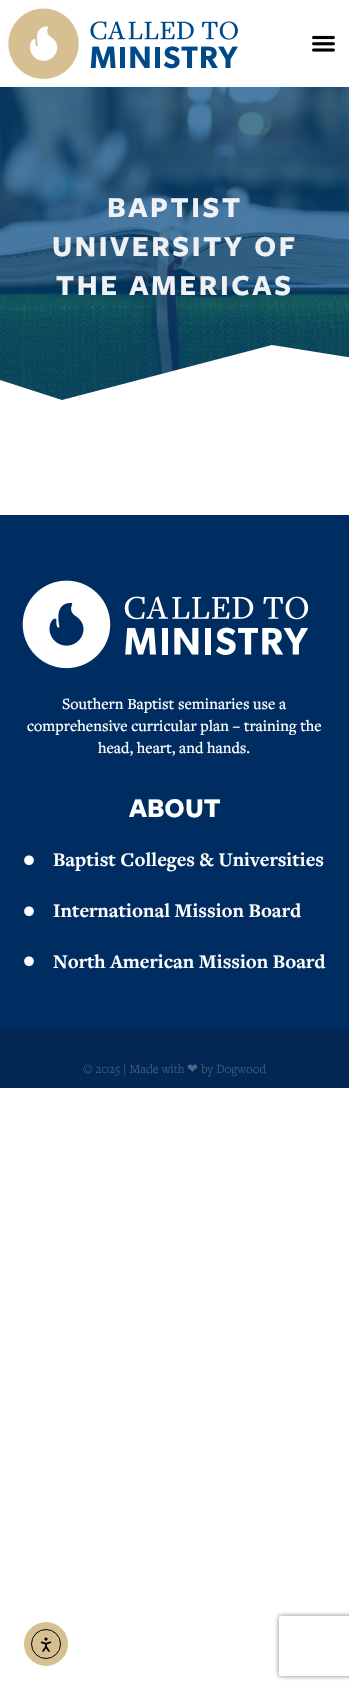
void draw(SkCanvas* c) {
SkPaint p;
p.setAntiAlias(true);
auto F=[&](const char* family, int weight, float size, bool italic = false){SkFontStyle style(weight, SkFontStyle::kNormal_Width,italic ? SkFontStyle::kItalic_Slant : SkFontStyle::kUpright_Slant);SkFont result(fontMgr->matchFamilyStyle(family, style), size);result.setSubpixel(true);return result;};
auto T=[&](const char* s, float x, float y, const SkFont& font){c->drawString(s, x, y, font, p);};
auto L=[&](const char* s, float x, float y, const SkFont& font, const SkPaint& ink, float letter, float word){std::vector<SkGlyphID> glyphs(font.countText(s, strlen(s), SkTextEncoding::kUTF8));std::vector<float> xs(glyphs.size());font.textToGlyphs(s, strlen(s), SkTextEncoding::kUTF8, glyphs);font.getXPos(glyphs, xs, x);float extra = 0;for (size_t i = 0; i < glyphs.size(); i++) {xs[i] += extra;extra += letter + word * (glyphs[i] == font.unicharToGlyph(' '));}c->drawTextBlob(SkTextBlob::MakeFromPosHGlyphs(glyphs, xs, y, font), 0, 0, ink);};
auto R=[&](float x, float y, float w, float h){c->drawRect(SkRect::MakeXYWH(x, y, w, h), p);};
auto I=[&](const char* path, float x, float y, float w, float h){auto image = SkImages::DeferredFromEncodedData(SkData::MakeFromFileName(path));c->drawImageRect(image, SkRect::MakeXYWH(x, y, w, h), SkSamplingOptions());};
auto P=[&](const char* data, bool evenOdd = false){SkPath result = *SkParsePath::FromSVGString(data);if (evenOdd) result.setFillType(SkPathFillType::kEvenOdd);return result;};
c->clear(0xffffffff);
I("1.png",8,8,230,71);
I("2.png",312,35,23,17);
I("3.png",0,87,349,313);
auto f1 = F("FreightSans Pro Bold",700,30);
p.setColor(0xffeff1f5);
L("BAPTIST",107,217,f1,p,2.6,0);
L("UNIVERSITY OF",52,256,f1,p,2.6,0);
L("THE AMERICAS",56,295,f1,p,2.6,0);
p.setColor(0xffffffff);
c->drawPath(P("M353 358l-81-13l-210 55l-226-73v78h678v-78"),p);
p.setColor(0xff002d61);
R(0,515,349,514);
I("4.png",22,580,287,89);
auto f2 = F("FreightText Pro",500,16);
p.setColor(0xffffffff);
T("Southern Baptist seminaries use a",62,709,f2);
T("comprehensive curricular plan – training the",27,731,f2);
T("head, heart, and hands.",98,753,f2);
auto f3 = F("FreightSans Pro Bold",700,28);
T("ABOUT",129,817,f3);
I("5.png",24,855,10,11);
auto f4 = F("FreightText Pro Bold",700,20);
T("Baptist Colleges & Universities",53,866,f4);
I("5.png",24,906,10,11);
T("International Mission Board",53,917,f4);
I("5.png",24,956,10,11);
T("North American Mission Board",53,968,f4);
p.setColor(0xff012752);
R(0,1029,349,59);
auto f5 = F("FreightText Pro",300,13);
p.setColor(0xff4e657f);
T("© 2025 | Made with",83,1073,f5);
auto f6 = F("DejaVu Sans",400,13);
T("❤",187,1073,f6);
T("by Dogwood",201,1073,f5);
p.setColor(0xffd6bf91);
c->drawCircle(46,1644,22,p);
p.setStroke(true);
p.setStrokeWidth(1);
p.setColor(0xff000000);
c->drawCircle(46,1644,14.5,p);
I("6.png",40,1637,12,15);
c->save();
c->clipPath(P("M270 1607h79v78h-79zm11 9h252c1 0 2 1 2 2v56c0 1-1 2-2 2h-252c-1 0-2-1-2-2v-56c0-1 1-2 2-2z",true),true);
p.setStroke(false);
p.setColor(0xff808080);
p.setMaskFilter(SkMaskFilter::MakeBlur(kNormal_SkBlurStyle, 2.5));
c->drawRoundRect(SkRect::MakeXYWH(279,1616,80,60),2,2,p);
p.setMaskFilter(nullptr);
c->restore();
}
